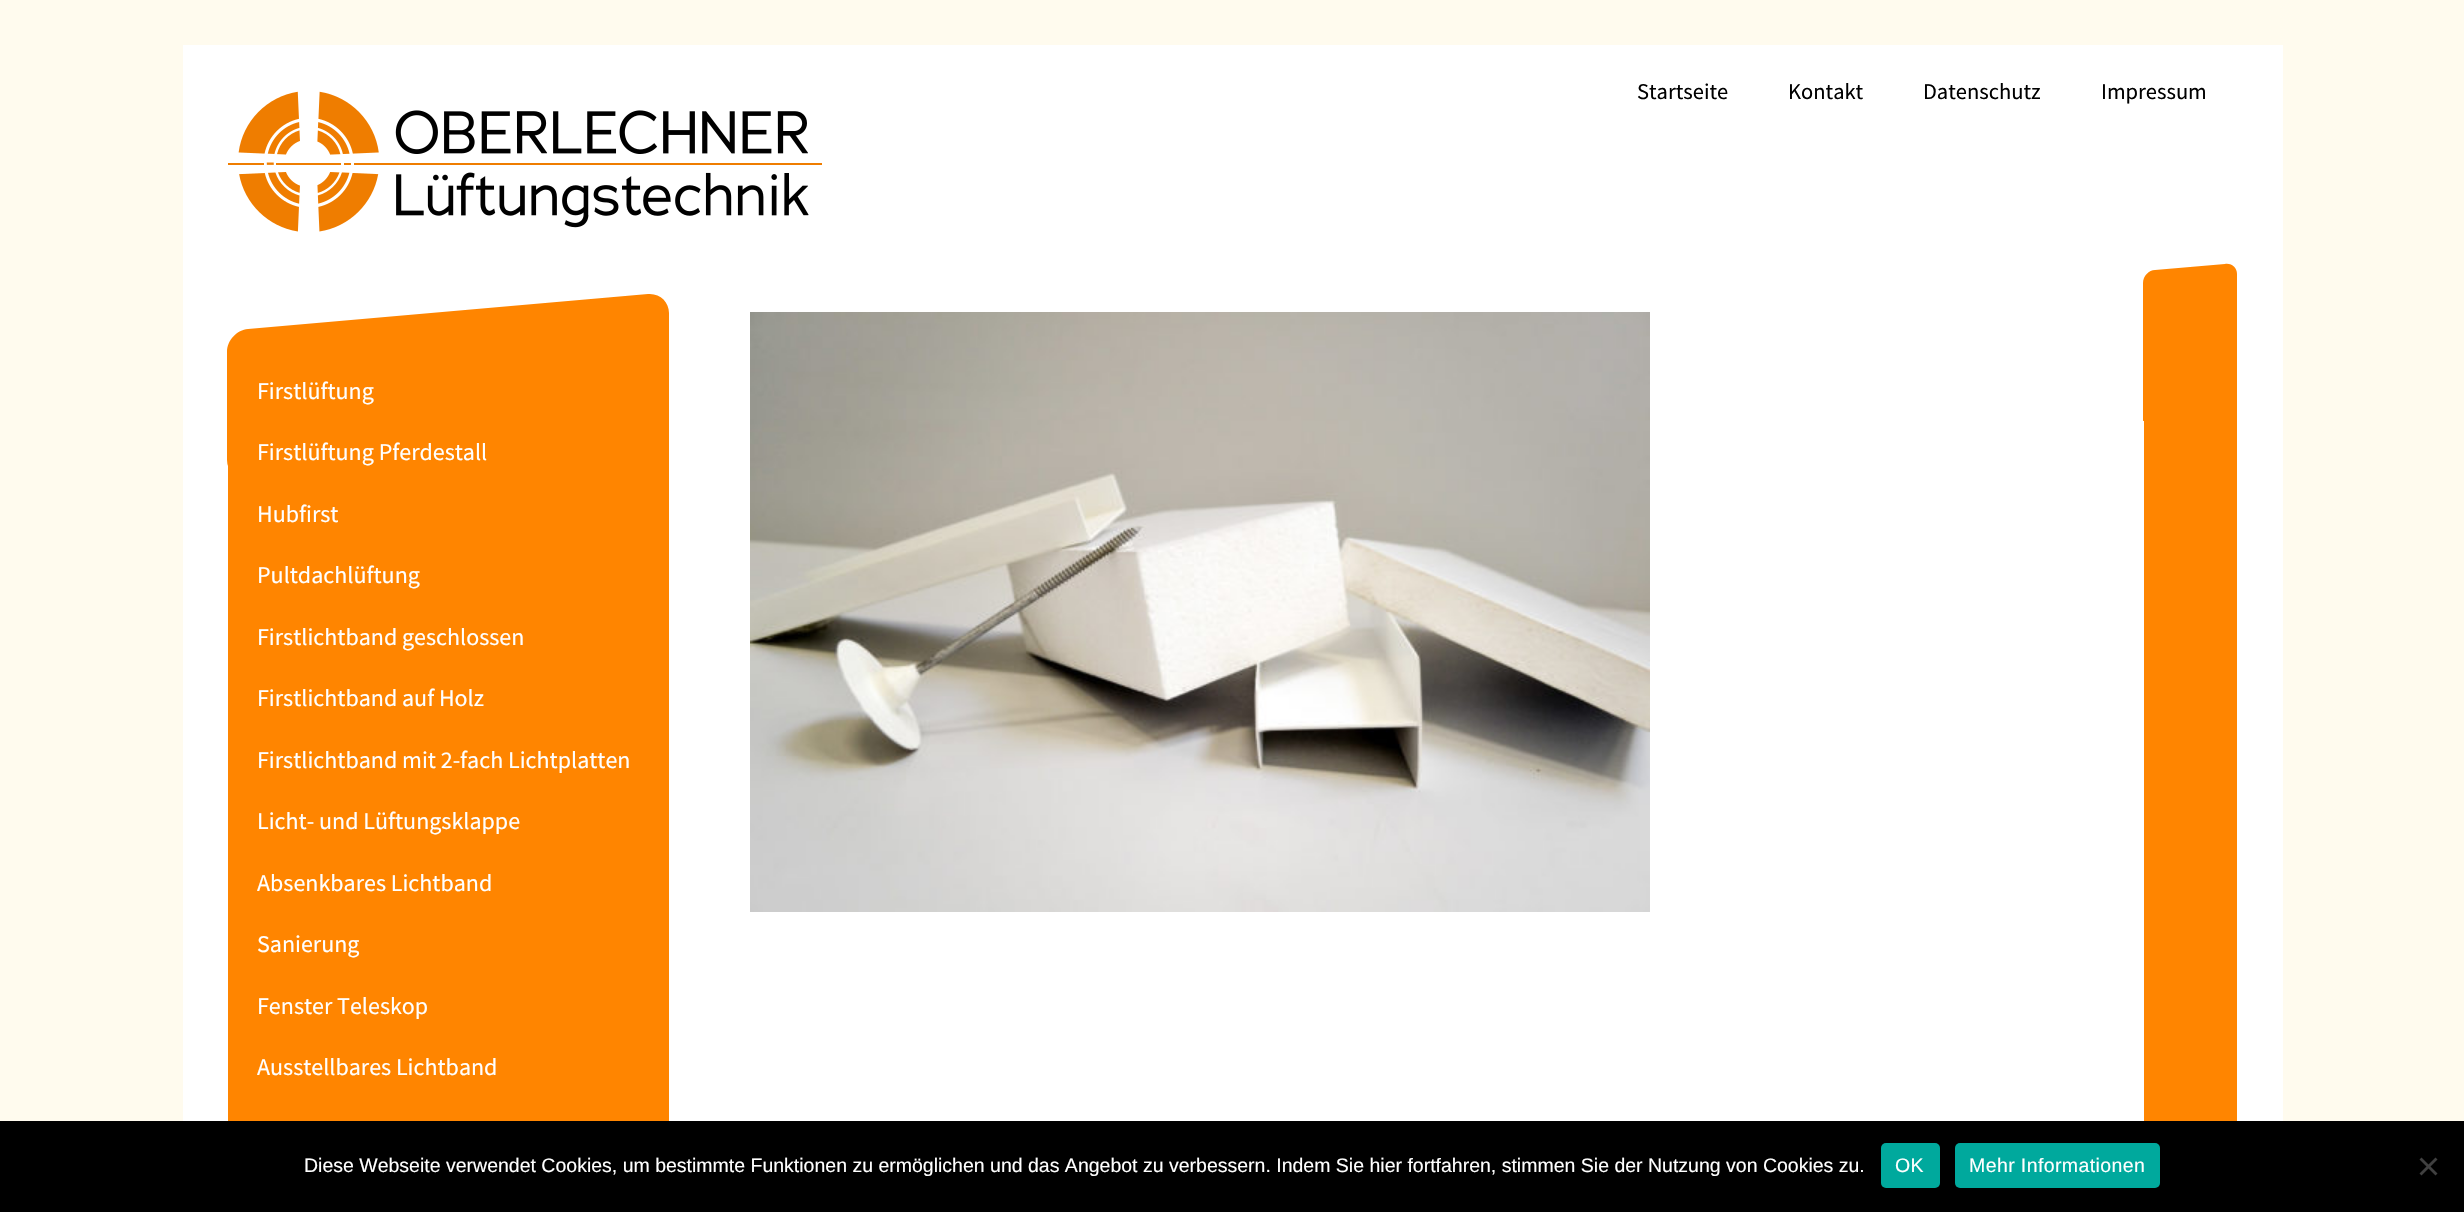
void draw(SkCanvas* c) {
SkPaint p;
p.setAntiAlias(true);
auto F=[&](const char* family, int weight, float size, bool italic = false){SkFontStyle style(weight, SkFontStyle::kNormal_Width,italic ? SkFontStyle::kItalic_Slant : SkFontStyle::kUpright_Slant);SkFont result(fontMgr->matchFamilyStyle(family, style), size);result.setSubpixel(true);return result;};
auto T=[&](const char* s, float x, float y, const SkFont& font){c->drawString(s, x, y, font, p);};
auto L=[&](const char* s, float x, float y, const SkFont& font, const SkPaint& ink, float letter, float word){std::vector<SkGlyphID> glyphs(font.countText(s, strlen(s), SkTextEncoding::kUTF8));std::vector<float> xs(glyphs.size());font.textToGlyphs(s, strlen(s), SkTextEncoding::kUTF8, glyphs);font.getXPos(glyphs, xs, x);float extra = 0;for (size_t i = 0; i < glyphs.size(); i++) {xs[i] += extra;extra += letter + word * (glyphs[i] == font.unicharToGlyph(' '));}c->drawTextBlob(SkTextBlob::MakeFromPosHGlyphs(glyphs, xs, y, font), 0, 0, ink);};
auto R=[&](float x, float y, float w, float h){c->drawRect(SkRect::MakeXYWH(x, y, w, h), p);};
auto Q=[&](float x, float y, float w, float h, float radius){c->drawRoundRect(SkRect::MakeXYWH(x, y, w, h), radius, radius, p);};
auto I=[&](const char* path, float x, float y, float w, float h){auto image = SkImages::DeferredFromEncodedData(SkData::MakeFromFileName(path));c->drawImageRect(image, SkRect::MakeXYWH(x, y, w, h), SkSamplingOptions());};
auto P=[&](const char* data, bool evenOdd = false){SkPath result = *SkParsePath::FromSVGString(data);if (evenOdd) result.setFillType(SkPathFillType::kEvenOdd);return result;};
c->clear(0xfffffbee);
p.setColor(0xffffffff);
R(183,45,2100,1076);
I("1.png",228,91,594,141);
auto f1 = F("Source Sans Pro",400,22.5);
p.setColor(0xff000000);
T("Startseite",1637,99,f1);
T("Kontakt",1788,99,f1);
T("Datenschutz",1923,99,f1);
T("Impressum",2101,99,f1);
p.setColor(0xffff8500);
R(228,421,441,700);
c->drawPath(P("M248 329l400-35c12-1 21 8 21 19v108c0 12-9 22-21 23l-400 35c-11 1-21-7-21-19v-108c0-12 10-22 21-23z"),p);
auto f2 = F("Source Sans Pro",400,24);
p.setColor(0xffffffff);
T("Firstlüftung",257,399,f2);
T("Firstlüftung Pferdestall",257,460,f2);
T("Hubfirst",257,522,f2);
T("Pultdachlüftung",257,583,f2);
T("Firstlichtband geschlossen",257,645,f2);
T("Firstlichtband auf Holz",257,706,f2);
T("Firstlichtband mit 2-fach Lichtplatten",257,768,f2);
T("Licht- und Lüftungsklappe",257,829,f2);
T("Absenkbares Lichtband",257,891,f2);
T("Sanierung",257,952,f2);
T("Fenster Teleskop",257,1014,f2);
T("Ausstellbares Lichtband",257,1075,f2);
I("2.png",750,312,900,600);
p.setColor(0xffff8500);
c->drawPath(P("M2155 270l70-6c7-1 12 4 12 10v138l-94 9v-138c0-7 6-13 12-13z"),p);
R(2144,412,93,709);
p.setColor(0xff000000);
R(0,1121,2464,91);
auto f3 = F("Liberation Sans",400,19.5);
p.setColor(0xffffffff);
T("Diese Webseite verwendet Cookies, um bestimmte Funktionen zu ermöglichen und das Angebot zu verbessern. Indem Sie hier fortfahren, stimmen Sie der Nutzung von Cookies zu.",304,1172,f3);
p.setColor(0xff00a99d);
Q(1881,1143,59,45,5);
p.setColor(0xffffffff);
L("OK",1895,1172,f3,p,.4,0);
p.setColor(0xff00a99d);
Q(1955,1143,205,45,5);
p.setColor(0xffffffff);
L("Mehr Informationen",1969,1172,f3,p,.4,0);
p.setColor(0xff404040);
c->drawPath(P("M2435.5 1157.5l2 2l-16 16l-2-2z"),p);
c->drawPath(P("M2419.5 1159.5l2-2l16 16l-2 2z"),p);
}
